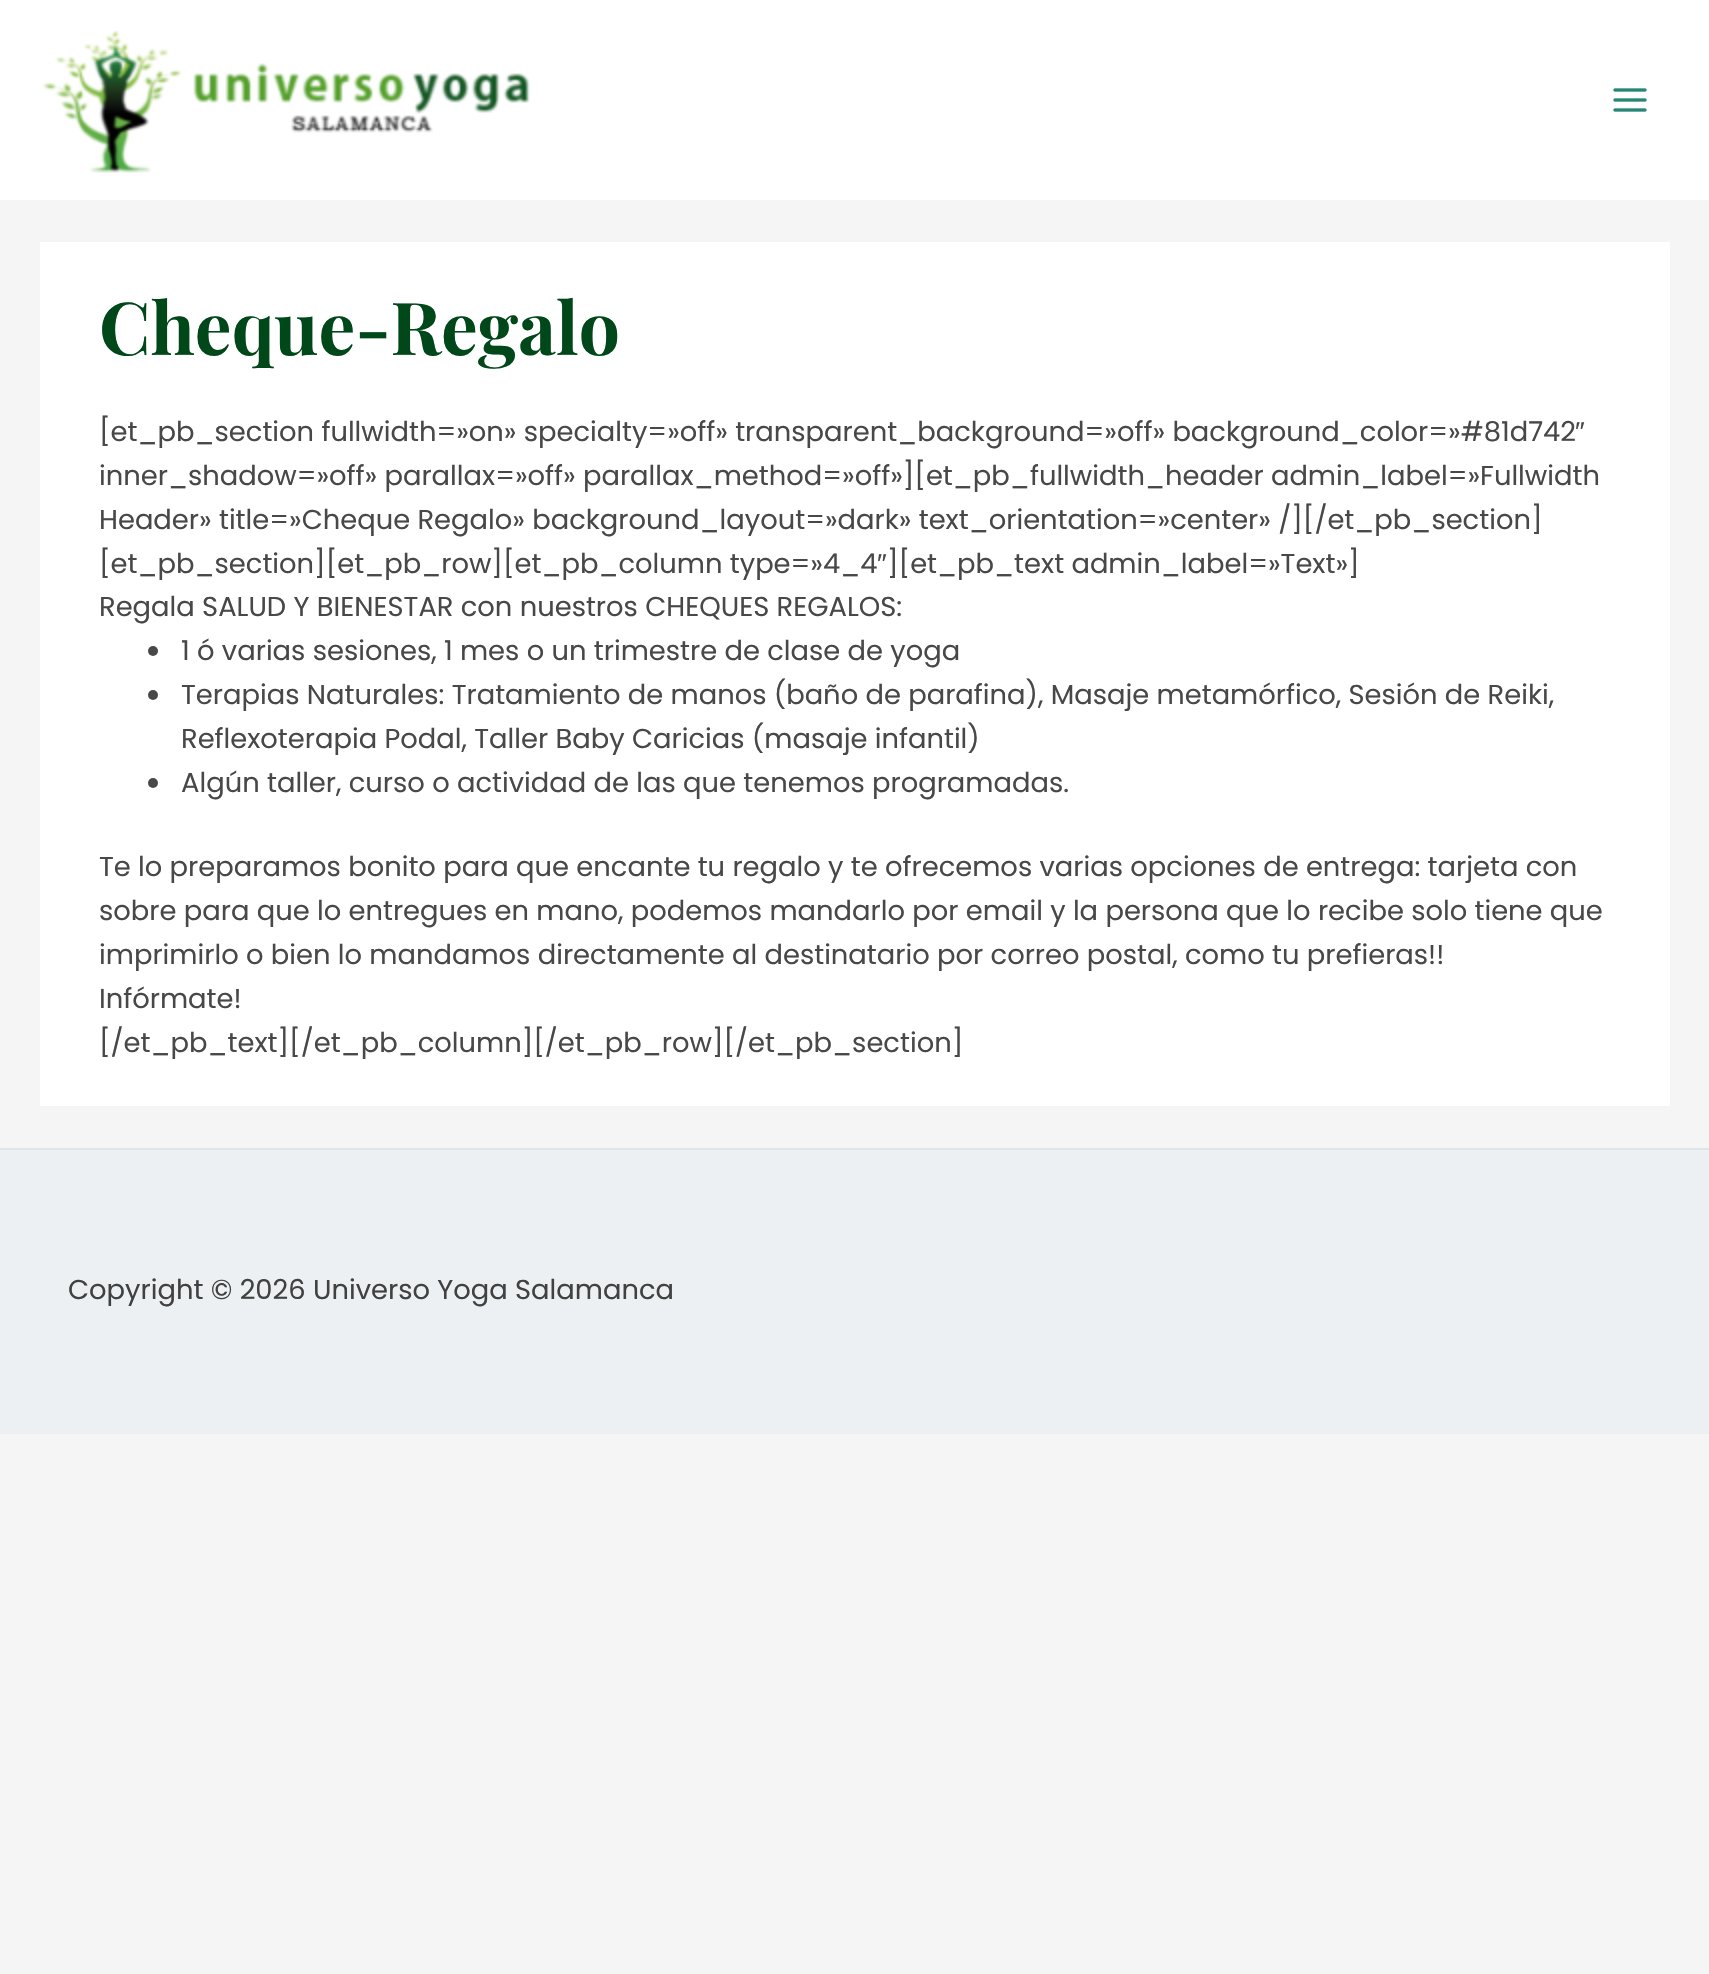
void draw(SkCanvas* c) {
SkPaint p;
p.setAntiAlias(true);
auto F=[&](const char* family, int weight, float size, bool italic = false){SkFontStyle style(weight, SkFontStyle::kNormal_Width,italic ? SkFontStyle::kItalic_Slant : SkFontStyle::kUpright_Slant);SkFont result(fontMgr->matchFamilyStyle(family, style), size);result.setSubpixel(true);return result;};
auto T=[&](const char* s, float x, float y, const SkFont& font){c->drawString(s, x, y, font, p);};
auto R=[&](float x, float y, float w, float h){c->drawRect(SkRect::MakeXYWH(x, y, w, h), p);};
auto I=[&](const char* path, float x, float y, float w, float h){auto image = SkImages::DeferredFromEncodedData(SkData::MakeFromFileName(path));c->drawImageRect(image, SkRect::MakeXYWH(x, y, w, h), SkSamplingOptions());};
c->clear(0xfff5f5f5);
p.setColor(0xffffffff);
R(0,0,1709,200);
I("1.png",42,30,488,143);
I("2.png",1613,88,34,24);
R(40,242,1630,864);
auto f1 = F("Playfair Display",700,73);
p.setColor(0xff00471a);
T("Cheque-Regalo",99,355,f1);
auto f2 = F("Poppins",400,27.35);
p.setColor(0xff484848);
T("[et_pb_section fullwidth=»on» specialty=»off» transparent_background=»off» background_color=»#81d742",99,441,f2);
auto f3 = F("Liberation Sans",400,27.35);
T("″",1575,441,f3);
T("inner_shadow=»off» parallax=»off» parallax_method=»off»][et_pb_fullwidth_header admin_label=»Fullwidth",99,485,f2);
T("Header» title=»Cheque Regalo» background_layout=»dark» text_orientation=»center» /][/et_pb_section]",99,529,f2);
T("[et_pb_section][et_pb_row][et_pb_column type=»4_4",99,573,f2);
T("″",877,573,f3);
T("][et_pb_text admin_label=»Text»]",887,573,f2);
T("Regala SALUD Y BIENESTAR con nuestros CHEQUES REGALOS:",99,616,f2);
c->drawCircle(153,651,5,p);
T("1 ó varias sesiones, 1 mes o un trimestre de clase de yoga",181,660,f2);
c->drawCircle(153,695,5,p);
T("Terapias Naturales: Tratamiento de manos (baño de parafina), Masaje metamórfico, Sesión de Reiki,",181,704,f2);
T("Reflexoterapia Podal, Taller Baby Caricias (masaje infantil)",181,748,f2);
c->drawCircle(153,783,5,p);
T("Algún taller, curso o actividad de las que tenemos programadas.",181,792,f2);
T("Te lo preparamos bonito para que encante tu regalo y te ofrecemos varias opciones de entrega: tarjeta con",99,876,f2);
T("sobre para que lo entregues en mano, podemos mandarlo por email y la persona que lo recibe solo tiene que",99,920,f2);
T("imprimirlo o bien lo mandamos directamente al destinatario por correo postal, como tu prefieras!!",99,964,f2);
T("Infórmate!",99,1008,f2);
T("[/et_pb_text][/et_pb_column][/et_pb_row][/et_pb_section]",99,1052,f2);
p.setColor(0xffecf0f2);
R(0,1150,1709,284);
p.setColor(0xffe1e4e6);
R(0,1148,1709,2);
p.setColor(0xff414141);
T("Copyright © 2026 Universo Yoga Salamanca",68,1299,f2);
}
